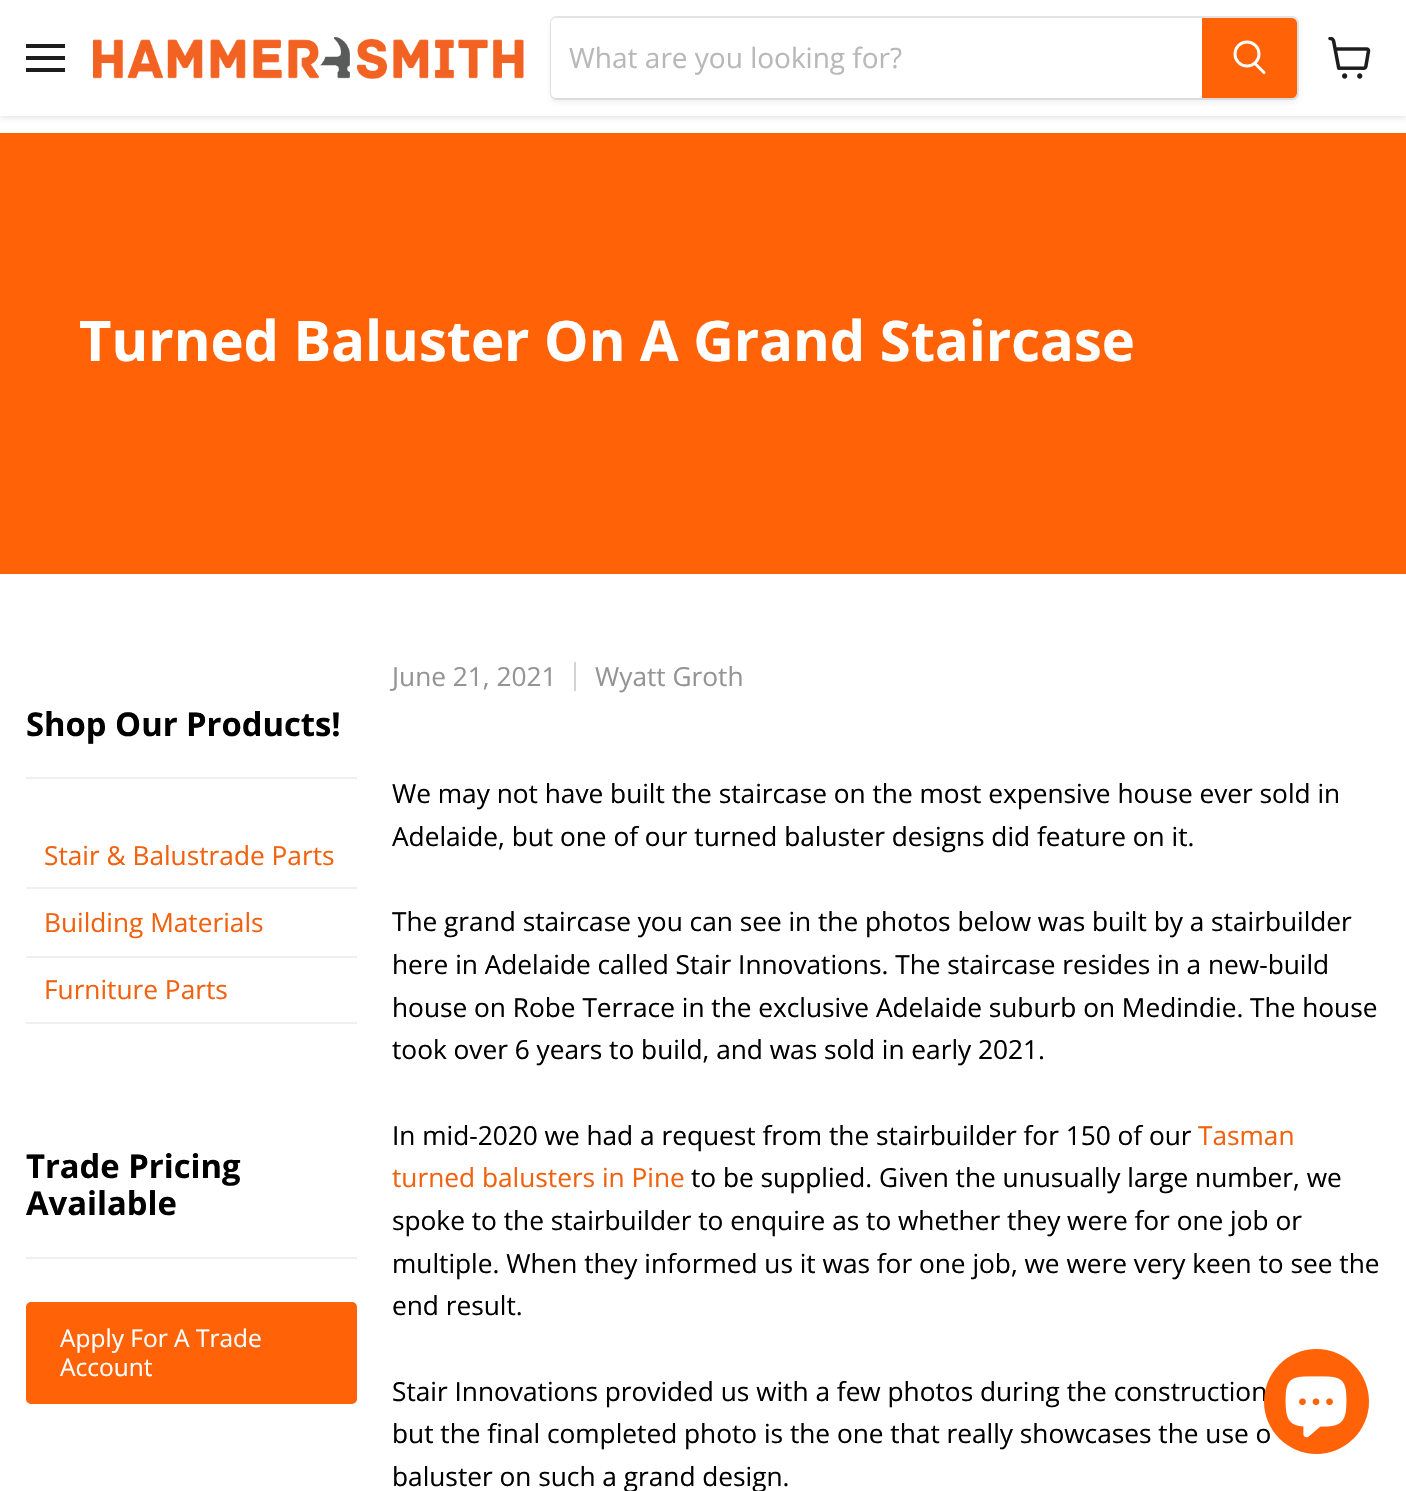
void draw(SkCanvas* c) {
SkPaint p;
p.setAntiAlias(true);
auto F=[&](const char* family, int weight, float size, bool italic = false){SkFontStyle style(weight, SkFontStyle::kNormal_Width,italic ? SkFontStyle::kItalic_Slant : SkFontStyle::kUpright_Slant);SkFont result(fontMgr->matchFamilyStyle(family, style), size);result.setSubpixel(true);return result;};
auto T=[&](const char* s, float x, float y, const SkFont& font){c->drawString(s, x, y, font, p);};
auto R=[&](float x, float y, float w, float h){c->drawRect(SkRect::MakeXYWH(x, y, w, h), p);};
auto I=[&](const char* path, float x, float y, float w, float h){auto image = SkImages::DeferredFromEncodedData(SkData::MakeFromFileName(path));c->drawImageRect(image, SkRect::MakeXYWH(x, y, w, h), SkSamplingOptions());};
auto P=[&](const char* data, bool evenOdd = false){SkPath result = *SkParsePath::FromSVGString(data);if (evenOdd) result.setFillType(SkPathFillType::kEvenOdd);return result;};
c->clear(0xffffffff);
p.setColor(0x40808080);
p.setMaskFilter(SkMaskFilter::MakeBlur(kNormal_SkBlurStyle, 3.5));
c->drawRect(SkRect::MakeXYWH(0,2,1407,115),p);
p.setMaskFilter(nullptr);
p.setColor(0xffffffff);
R(0,0,1406,116);
p.setColor(0xff1d1d1d);
R(26,44,39,4);
R(26,56,39,4);
R(26,68,39,4);
I("1.png",93,37,431,42);
p.setColor(0x1c808080);
p.setMaskFilter(SkMaskFilter::MakeBlur(kNormal_SkBlurStyle, 2.5));
c->drawRoundRect(SkRect::MakeXYWH(550,19,749,84),7,7,p);
p.setMaskFilter(nullptr);
p.setStroke(true);
p.setStrokeWidth(2);
p.setColor(0x33808080);
c->drawRoundRect(SkRect::MakeXYWH(551,17,747,82),6,6,p);
p.setStroke(false);
p.setColor(0xffffffff);
c->drawPath(P("M556 18h646v80h-646c-3 0-5-2-5-5v-70c0-3 2-5 5-5z"),p);
auto f1 = F("Open Sans",400,28);
p.setColor(0xffb8b8b8);
T("What are you looking for?",569,68,f1);
p.setColor(0xffff6207);
c->drawPath(P("M1203 19h89c2 0 4 2 4 4v70c0 2-2 4-4 4h-89z"),p);
p.setStroke(true);
c->drawPath(P("M1203 19h89c2 0 4 2 4 4v70c0 2-2 4-4 4h-89z"),p);
p.setStrokeWidth(3);
p.setStrokeCap(SkPaint::kRound_Cap);
p.setColor(0xffffffff);
c->drawPath(P("M1264 72.5l-8.5-8.5"),p);
p.setStrokeCap(SkPaint::kButt_Cap);
c->drawCircle(1247,54,12,p);
I("2.png",1328,37,43,42);
p.setStroke(false);
p.setColor(0xffff6207);
R(0,133,1406,441);
auto f2 = F("Open Sans",700,56);
p.setColor(0xffffffff);
T("Turned Baluster On A Grand Staircase",79,361,f2);
p.setColor(0xffefefef);
R(26,777,331,2);
auto f3 = F("Open Sans",700,32.75);
p.setColor(0xff000000);
T("Shop Our Products!",26,736,f3);
p.setColor(0xffefefef);
R(26,887,331,2);
auto f4 = F("Open Sans",400,26.25);
p.setColor(0xfff1610e);
T("Stair & Balustrade Parts",44,865,f4);
p.setColor(0xffefefef);
R(26,956,331,2);
p.setColor(0xfff1610e);
T("Building Materials",44,932,f4);
p.setColor(0xffefefef);
R(26,1022,331,2);
p.setColor(0xfff1610e);
T("Furniture Parts",44,999,f4);
p.setColor(0xffefefef);
R(26,1257,331,2);
p.setColor(0xff000000);
T("Trade Pricing",26,1178,f3);
T("Available",26,1215,f3);
p.setColor(0xffff6207);
c->drawRoundRect(SkRect::MakeXYWH(27,1303,329,100),4,4,p);
p.setStroke(true);
p.setStrokeWidth(2);
c->drawRoundRect(SkRect::MakeXYWH(27,1303,329,100),4,4,p);
auto f5 = F("Open Sans",400,24.5);
p.setStroke(false);
p.setColor(0xffffffff);
T("Apply For A Trade",60,1347,f5);
T("Account",60,1376,f5);
p.setColor(0xff949494);
T("June 21, 2021",392,686,f4);
p.setColor(0xffd3d3d3);
R(574,662,2,29);
p.setColor(0xff949494);
T("Wyatt Groth",595,686,f4);
p.setColor(0xff000000);
T("We may not have built the staircase on the most expensive house ever sold in",392,803,f4);
T("Adelaide, but one of our turned baluster designs did feature on it.",392,846,f4);
T("The grand staircase you can see in the photos below was built by a stairbuilder",392,931,f4);
T("here in Adelaide called Stair Innovations. The staircase resides in a new-build",392,974,f4);
T("house on Robe Terrace in the exclusive Adelaide suburb on Medindie. The house",392,1017,f4);
T("took over 6 years to build, and was sold in early 2021.",392,1059,f4);
T("In mid-2020 we had a request from the stairbuilder for 150 of our",392,1145,f4);
p.setColor(0xfff1610e);
T("Tasman",1198,1145,f4);
T("turned balusters in Pine",392,1187,f4);
p.setColor(0xff000000);
T("to be supplied. Given the unusually large number, we",691,1187,f4);
T("spoke to the stairbuilder to enquire as to whether they were for one job or",392,1230,f4);
T("multiple. When they informed us it was for one job, we were very keen to see the",392,1273,f4);
T("end result.",392,1315,f4);
T("Stair Innovations provided us with a few photos during the construction",392,1401,f4);
T("but the final completed photo is the one that really showcases the use o",392,1443,f4);
T("baluster on such a grand design.",392,1486,f4);
p.setColor(0xffff6207);
c->drawCircle(1316.5,1401.5,52.5,p);
I("3.png",1285,1376,62,62);
}
